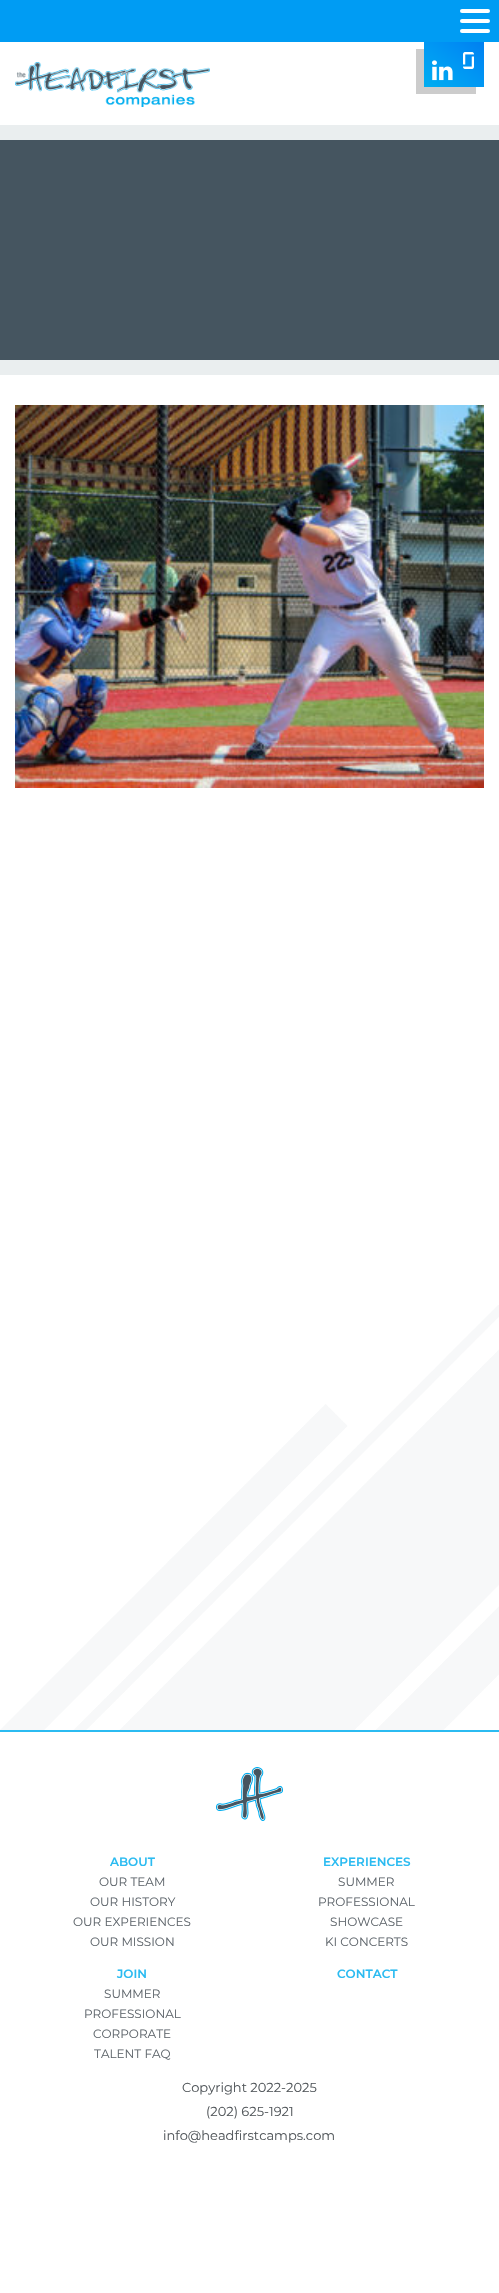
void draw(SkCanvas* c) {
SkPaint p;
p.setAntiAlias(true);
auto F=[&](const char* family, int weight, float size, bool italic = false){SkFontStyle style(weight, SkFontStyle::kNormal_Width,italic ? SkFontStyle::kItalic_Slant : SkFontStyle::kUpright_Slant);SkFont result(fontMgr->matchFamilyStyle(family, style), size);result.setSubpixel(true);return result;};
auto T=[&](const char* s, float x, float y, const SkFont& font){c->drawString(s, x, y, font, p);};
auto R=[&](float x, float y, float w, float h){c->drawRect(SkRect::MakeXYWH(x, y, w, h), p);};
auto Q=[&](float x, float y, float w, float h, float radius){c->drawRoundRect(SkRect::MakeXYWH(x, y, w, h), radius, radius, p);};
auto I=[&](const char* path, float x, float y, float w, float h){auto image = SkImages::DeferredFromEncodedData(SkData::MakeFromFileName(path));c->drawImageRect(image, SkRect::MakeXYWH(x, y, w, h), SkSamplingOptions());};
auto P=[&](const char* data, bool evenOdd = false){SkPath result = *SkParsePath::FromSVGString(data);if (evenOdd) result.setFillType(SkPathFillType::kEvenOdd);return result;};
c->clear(0xffffffff);
p.setColor(0xff009cf3);
R(0,0,499,42);
p.setColor(0xffffffff);
Q(460,9,30,4,2);
Q(460,19,30,4,2);
Q(460,29,30,4,2);
I("1.png",15,62,195,45);
p.setColor(0xffcccccc);
c->drawPath(P("M416 49v45h60v-7h-52v-38z"),p);
{
const SkColor colors[] = {0xff01aef0,0xff00a3f2,0xff0098f3,0xff008cf3,0xff007ff0};
const float stops[] = {0,.25,.5,.75,1};
const SkPoint ends[] = {{432,93}, {476,36}};
p.setShader(SkGradientShader::MakeLinear(ends, colors, stops, 5, SkTileMode::kClamp));
p.setAlpha(255);
}
R(424,42,60,45);
I("2.png",432,60,21,21);
I("3.png",463,52,11,17);
I("4.png",0,1305,499,425);
p.setShader(nullptr);
p.setColor(0xff455560);
R(0,140,499,220);
p.setColor(0xffeaeeef);
R(0,125,499,15);
R(0,360,499,15);
I("5.png",15,405,469,383);
p.setColor(0xff2bbbf1);
R(0,1730,499,2);
I("6.png",216,1767,67,54);
auto f1 = F("Montserrat",600,12);
T("ABOUT",110,1866,f1);
auto f2 = F("Montserrat",400,12);
p.setColor(0xff5f666c);
T("OUR TEAM",99,1886,f2);
T("OUR HISTORY",90,1906,f2);
T("OUR EXPERIENCES",73,1926,f2);
T("OUR MISSION",90,1946,f2);
p.setColor(0xff2bbbf1);
T("EXPERIENCES",323,1866,f1);
p.setColor(0xff5f666c);
T("SUMMER",338,1886,f2);
T("PROFESSIONAL",318,1906,f2);
T("SHOWCASE",330,1926,f2);
T("KI CONCERTS",325,1946,f2);
p.setColor(0xff2bbbf1);
T("JOIN",117,1978,f1);
p.setColor(0xff5f666c);
T("SUMMER",104,1998,f2);
T("PROFESSIONAL",84,2018,f2);
T("CORPORATE",93,2038,f2);
T("TALENT FAQ",94,2058,f2);
p.setColor(0xff2bbbf1);
T("CONTACT",337,1978,f1);
auto f3 = F("Montserrat",400,13);
p.setColor(0xff52575b);
T("Copyright 2022-2025",182,2092,f3);
T("(202) 625-1921",206,2116,f3);
T("info@headfirstcamps.com",163,2140,f3);
}
